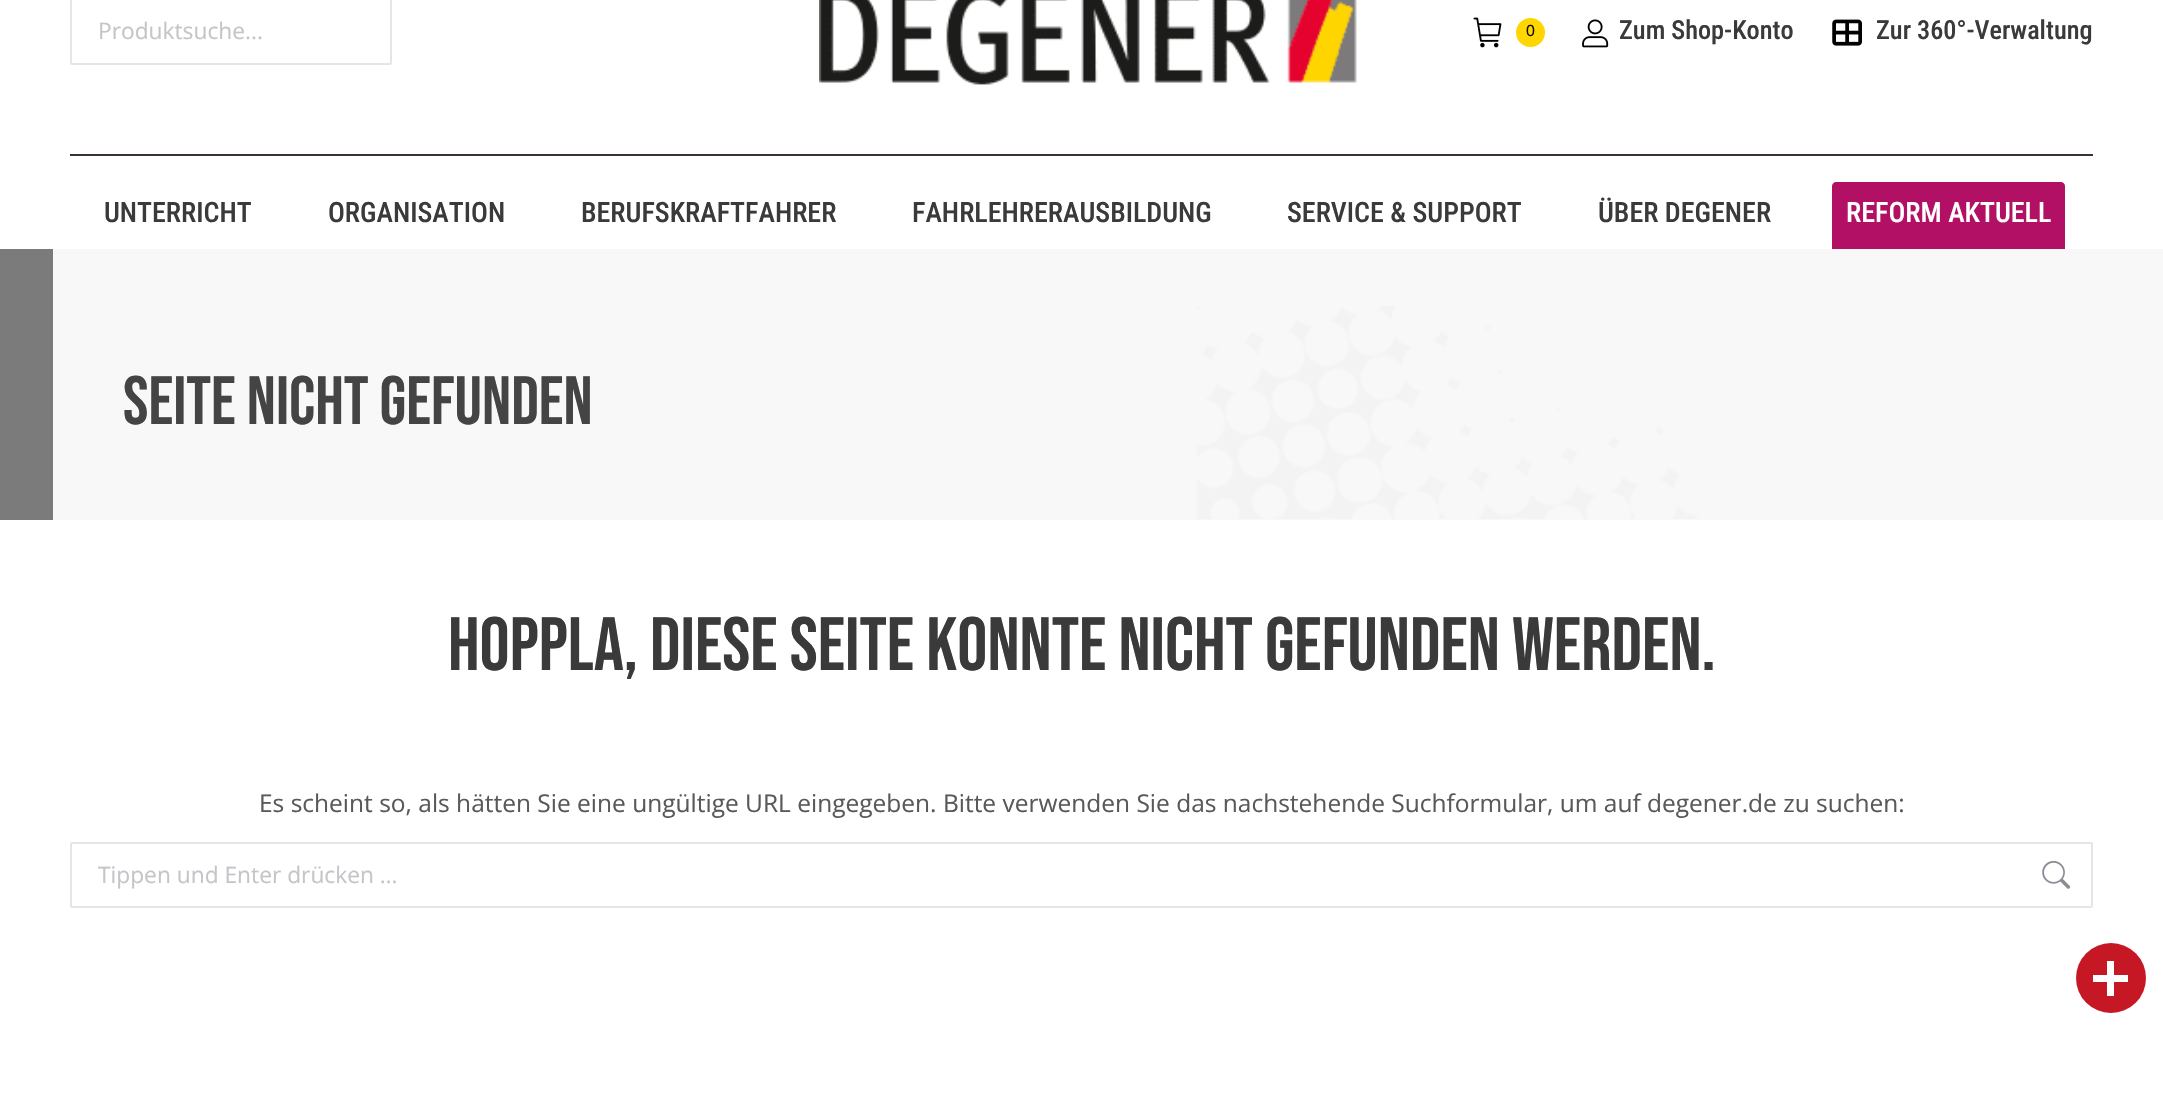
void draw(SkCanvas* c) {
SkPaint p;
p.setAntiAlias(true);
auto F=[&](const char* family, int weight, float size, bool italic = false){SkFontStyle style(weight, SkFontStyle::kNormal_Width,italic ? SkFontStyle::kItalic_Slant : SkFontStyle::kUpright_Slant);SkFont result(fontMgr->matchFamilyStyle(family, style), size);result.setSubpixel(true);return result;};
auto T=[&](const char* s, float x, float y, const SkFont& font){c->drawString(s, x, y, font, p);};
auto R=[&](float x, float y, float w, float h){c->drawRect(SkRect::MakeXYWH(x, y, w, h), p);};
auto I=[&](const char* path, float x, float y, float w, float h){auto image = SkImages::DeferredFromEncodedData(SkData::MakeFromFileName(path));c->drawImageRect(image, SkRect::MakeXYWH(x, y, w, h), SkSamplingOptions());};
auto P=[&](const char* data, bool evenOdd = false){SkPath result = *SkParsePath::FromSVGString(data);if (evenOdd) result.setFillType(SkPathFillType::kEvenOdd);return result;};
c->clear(0xffffffff);
p.setStroke(true);
p.setStrokeWidth(2);
p.setColor(0xffe5e5e5);
c->drawRoundRect(SkRect::MakeXYWH(71,-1,320,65),1,1,p);
auto f1 = F("Open Sans",400,22.75);
p.setStroke(false);
p.setColor(0xffc4c5c9);
T("Produktsuche...",98,39,f1);
I("1.png",819,0,538,85);
I("2.png",1473,17,29,31);
p.setColor(0xffffd600);
c->drawCircle(1530.5,32.5,14.5,p);
auto f2 = F("Liberation Sans",400,16);
p.setColor(0xff0a0a0a);
T("0",1526,36,f2);
I("3.png",1582,19,27,29);
auto f3 = F("Roboto Condensed",500,26.25);
p.setColor(0xff3a3a3a);
T("Zum Shop-Konto",1619,39,f3);
I("4.png",1832,19,30,27);
T("Zur 360°-Verwaltung",1876,39,f3);
p.setColor(0xff3d3232);
R(70,154,2023,2);
auto f4 = F("Roboto Condensed",500,28);
p.setColor(0xff3a3a3a);
T("UNTERRICHT",104,222,f4);
T("ORGANISATION",328,222,f4);
T("BERUFSKRAFTFAHRER",581,222,f4);
T("FAHRLEHRERAUSBILDUNG",912,222,f4);
T("SERVICE & SUPPORT",1287,222,f4);
T("ÜBER DEGENER",1598,222,f4);
p.setColor(0xffb21064);
c->drawPath(P("M1836 182h225c2 0 4 2 4 4v63h-233v-63c0-2 2-4 4-4z"),p);
p.setColor(0xffffffff);
T("REFORM AKTUELL",1846,222,f4);
p.setColor(0xfff8f8f8);
R(53,249,2110,271);
I("5.png",1197,306,500,213);
p.setColor(0xff7c7b7b);
R(0,249,53,271);
auto f5 = F("Bebas Neue",400,68.25);
p.setColor(0xff444444);
T("Seite nicht gefunden",123,424,f5);
auto f6 = F("Bebas Neue",400,75.25);
p.setColor(0xff3a3a3a);
T("Hoppla, diese Seite konnte nicht gefunden werden.",448,670,f6);
auto f7 = F("Open Sans",400,24.5);
p.setColor(0xff595959);
T("Es scheint so, als hätten Sie eine ungültige URL eingegeben. Bitte verwenden Sie das nachstehende Suchformular, um auf degener.de zu suchen:",259,812,f7);
p.setStroke(true);
p.setColor(0xffe5e5e5);
c->drawRoundRect(SkRect::MakeXYWH(71,843,2021,64),1,1,p);
p.setStroke(false);
p.setColor(0xffc4c5c9);
T("Tippen und Enter drücken …",98,883,f1);
I("6.png",2042,861,28,28);
p.setColor(0xffc51824);
c->drawCircle(2111,978,35,p);
p.setColor(0xffffffff);
R(2093,975,35,7);
R(2107,961,7,35);
}
